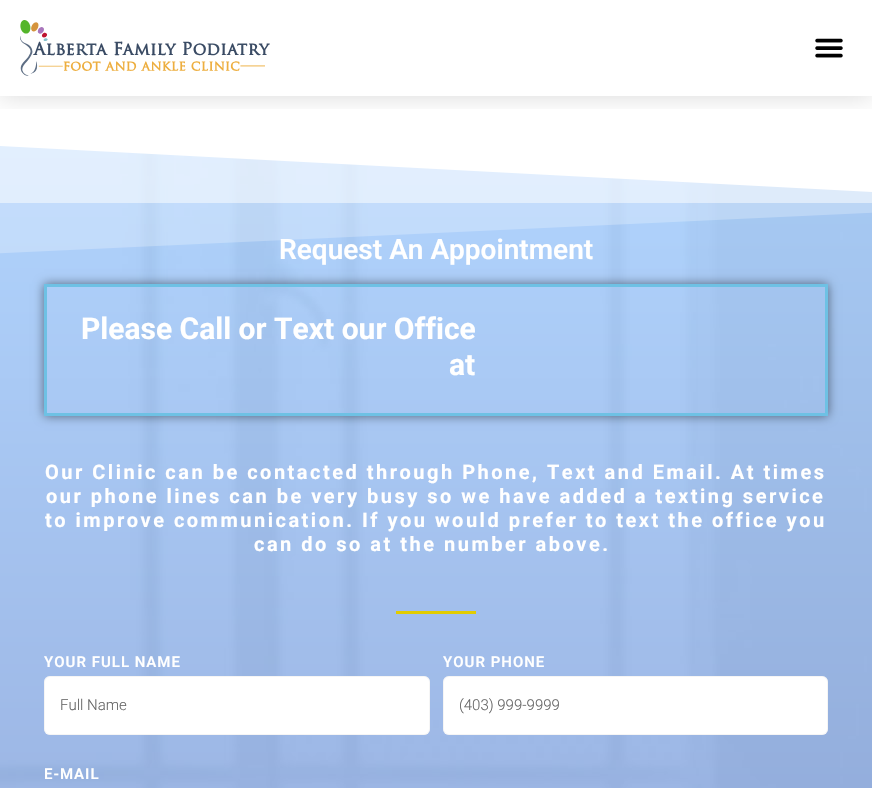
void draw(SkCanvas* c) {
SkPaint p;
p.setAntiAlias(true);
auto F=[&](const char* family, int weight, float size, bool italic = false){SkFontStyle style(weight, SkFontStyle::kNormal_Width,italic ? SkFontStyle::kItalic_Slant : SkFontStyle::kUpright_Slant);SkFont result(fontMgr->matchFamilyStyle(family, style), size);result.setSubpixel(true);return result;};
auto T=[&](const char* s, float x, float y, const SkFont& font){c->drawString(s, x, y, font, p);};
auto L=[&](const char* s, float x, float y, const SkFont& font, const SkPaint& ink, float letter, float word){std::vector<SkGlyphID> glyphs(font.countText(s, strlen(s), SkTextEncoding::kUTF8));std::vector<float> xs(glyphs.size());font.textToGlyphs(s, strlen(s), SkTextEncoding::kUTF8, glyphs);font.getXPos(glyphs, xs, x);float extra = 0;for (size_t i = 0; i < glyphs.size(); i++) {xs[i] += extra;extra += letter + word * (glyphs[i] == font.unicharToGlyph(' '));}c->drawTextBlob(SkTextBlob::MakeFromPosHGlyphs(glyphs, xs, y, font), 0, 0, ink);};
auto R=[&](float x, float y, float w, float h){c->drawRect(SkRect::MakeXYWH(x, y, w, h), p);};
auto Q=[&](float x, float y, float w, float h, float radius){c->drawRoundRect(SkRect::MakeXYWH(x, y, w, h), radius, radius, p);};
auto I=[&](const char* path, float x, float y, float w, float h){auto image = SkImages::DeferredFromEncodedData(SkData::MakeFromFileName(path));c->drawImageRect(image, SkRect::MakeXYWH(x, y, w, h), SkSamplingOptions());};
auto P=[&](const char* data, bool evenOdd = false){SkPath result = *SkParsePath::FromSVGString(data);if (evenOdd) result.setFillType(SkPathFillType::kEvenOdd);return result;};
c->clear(0xffffffff);
c->save();
c->clipRect(SkRect::MakeXYWH(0,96,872,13));
p.setColor(0x26000000);
p.setMaskFilter(SkMaskFilter::MakeBlur(kNormal_SkBlurStyle, 12));
c->drawRect(SkRect::MakeXYWH(0,0,872,96),p);
p.setMaskFilter(nullptr);
c->restore();
I("1.png",20,20,250,56);
I("2.png",815,38,28,20);
I("3.png",0,146,872,642);
p.setColor(0xffffffff);
c->drawPath(P("M-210 135h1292v68z"),p);
p.setColor(0x80ffffff);
R(0,146,872,57);
auto f1 = F("Roboto",600,28);
p.setColor(0xffffffff);
T("Request An Appointment",279,259,f1);
p.setColor(0x40ffffff);
c->drawPath(P("M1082 135h-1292v128l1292-60z"),p);
c->save();
c->clipPath(P("M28 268h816v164h-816zm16 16h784v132h-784z",true),true);
p.setColor(0x80000000);
p.setMaskFilter(SkMaskFilter::MakeBlur(kNormal_SkBlurStyle, 5));
c->drawRect(SkRect::MakeXYWH(44,284,784,132),p);
p.setMaskFilter(nullptr);
c->restore();
p.setStroke(true);
p.setStrokeWidth(3);
p.setColor(0xff6ec1e4);
c->drawRect(SkRect::MakeXYWH(45.5,285.5,781,129),p);
auto f2 = F("Roboto",700,30);
p.setStroke(false);
p.setColor(0xffffffff);
T("Please Call or Text our Office",81,339,f2);
T("at",449,375,f2);
auto f3 = F("Roboto",700,20);
L("Our Clinic can be contacted through Phone, Text and Email. At times",45,479,f3,p,2.5,0);
L("our phone lines can be very busy so we have added a texting service",46,503,f3,p,2.5,0);
L("to improve communication. If you would prefer to text the office you",45,527,f3,p,2.5,0);
L("can do so at the number above.",254,551,f3,p,2.5,0);
p.setColor(0xffe2cc00);
R(396,611,80,3);
auto f4 = F("Roboto",600,15);
p.setColor(0xffffffff);
L("YOUR FULL NAME",44,667,f4,p,1,0);
Q(44,676,386,59,6);
p.setStroke(true);
p.setStrokeWidth(1);
p.setColor(0x73e8e8e8);
c->drawRoundRect(SkRect::MakeXYWH(44.5,676.5,385,58),5.5,5.5,p);
auto f5 = F("Roboto",300,15);
p.setStroke(false);
p.setColor(0xff666666);
T("Full Name",60,710,f5);
p.setColor(0xffffffff);
L("YOUR PHONE",443,667,f4,p,1,0);
Q(443,676,385,59,6);
p.setStroke(true);
p.setColor(0x73e8e8e8);
c->drawRoundRect(SkRect::MakeXYWH(443.5,676.5,384,58),5.5,5.5,p);
p.setStroke(false);
p.setColor(0xff666666);
T("(403) 999-9999",459,710,f5);
p.setColor(0xffffffff);
L("E-MAIL",44,779,f4,p,1,0);
}
